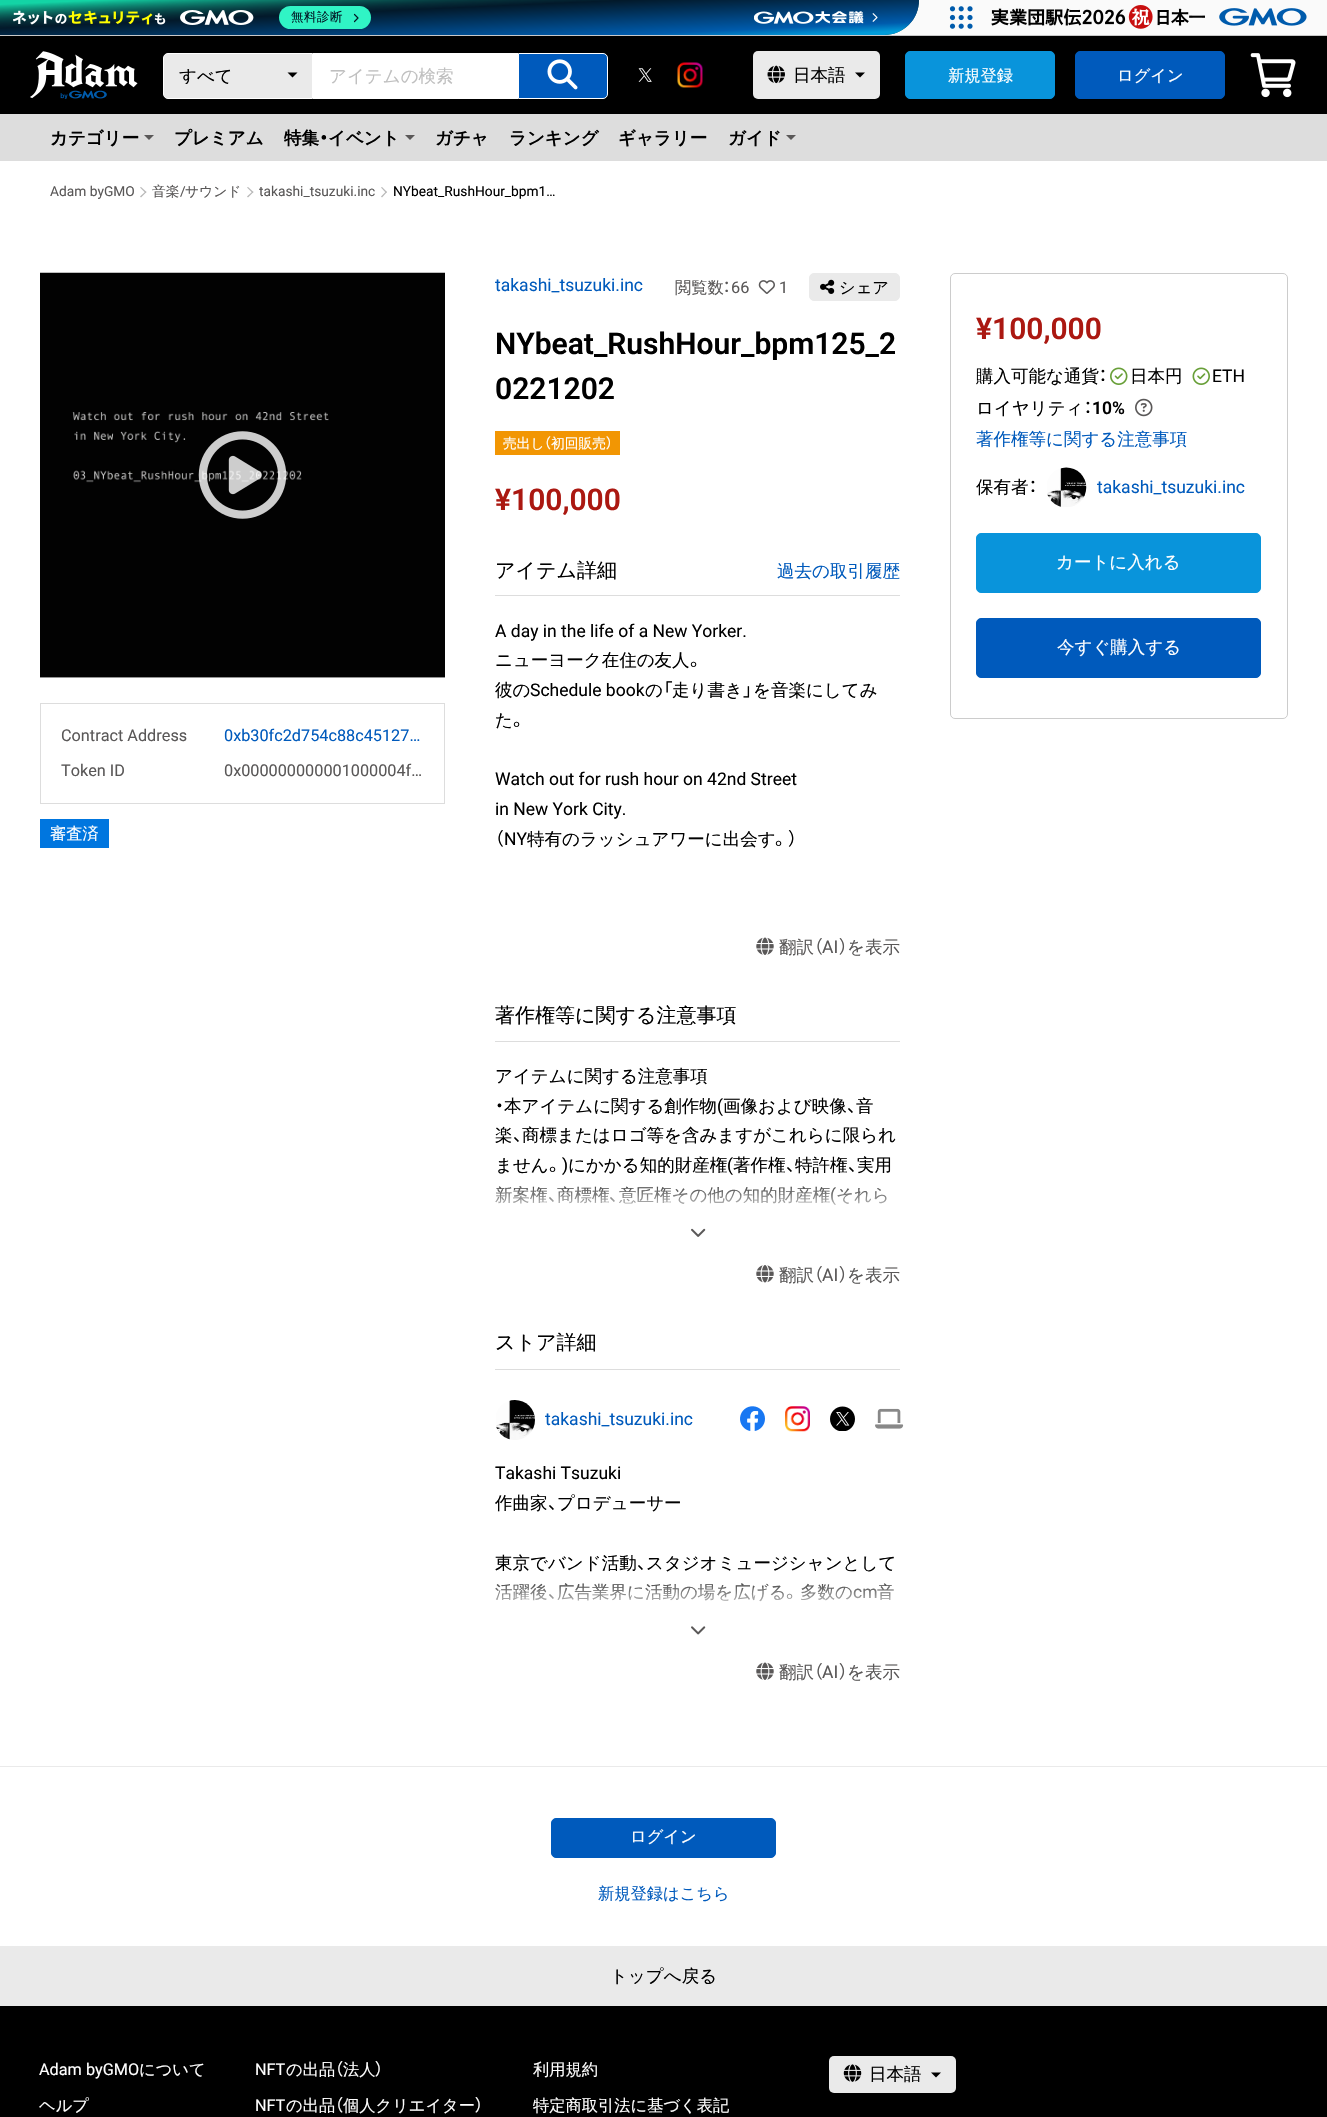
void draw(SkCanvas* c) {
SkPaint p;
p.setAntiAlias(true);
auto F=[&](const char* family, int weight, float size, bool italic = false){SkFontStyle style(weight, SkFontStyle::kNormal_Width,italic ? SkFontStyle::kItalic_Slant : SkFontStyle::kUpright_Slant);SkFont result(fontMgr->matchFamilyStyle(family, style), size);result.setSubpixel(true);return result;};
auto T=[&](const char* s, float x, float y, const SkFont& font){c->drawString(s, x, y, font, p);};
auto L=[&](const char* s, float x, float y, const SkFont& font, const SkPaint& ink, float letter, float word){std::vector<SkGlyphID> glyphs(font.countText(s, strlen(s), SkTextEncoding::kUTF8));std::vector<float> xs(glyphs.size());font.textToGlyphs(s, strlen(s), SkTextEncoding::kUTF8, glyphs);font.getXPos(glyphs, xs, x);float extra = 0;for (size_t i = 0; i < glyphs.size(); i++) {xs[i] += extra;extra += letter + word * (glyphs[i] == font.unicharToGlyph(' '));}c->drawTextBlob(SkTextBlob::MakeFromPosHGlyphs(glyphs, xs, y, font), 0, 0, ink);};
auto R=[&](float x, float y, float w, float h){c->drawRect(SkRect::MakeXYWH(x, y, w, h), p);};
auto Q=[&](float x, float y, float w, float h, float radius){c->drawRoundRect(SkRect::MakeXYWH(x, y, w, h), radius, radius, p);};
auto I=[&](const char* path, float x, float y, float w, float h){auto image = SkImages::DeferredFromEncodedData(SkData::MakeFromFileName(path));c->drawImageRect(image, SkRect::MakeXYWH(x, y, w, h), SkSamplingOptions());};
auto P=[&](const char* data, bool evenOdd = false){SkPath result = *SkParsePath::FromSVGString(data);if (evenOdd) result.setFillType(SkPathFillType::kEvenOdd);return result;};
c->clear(0xffffffff);
p.setColor(0xfffafafa);
R(884,0,443,35);
p.setColor(0xffc8c8c8);
R(0,35,1327,1);
{
const SkColor colors[] = {0xff13d4a5,0xff0e7365,0xff0b4d4b};
const float stops[] = {0,.28,.65};
const SkPoint ends[] = {{458,-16}, {461,51}};
p.setShader(SkGradientShader::MakeLinear(ends, colors, stops, 3, SkTileMode::kClamp));
p.setAlpha(255);
}
c->drawPath(P("M0 0h919c0 19.5-15.5 35-35 35h-884z"),p);
{
const SkColor colors[] = {0xff019cd9,0xff005bac,0xff02192a,0x0002192a};
const float stops[] = {0,.13,.65,1};
const SkPoint ends[] = {{461,51}, {458,-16}};
p.setShader(SkGradientShader::MakeLinear(ends, colors, stops, 4, SkTileMode::kClamp));
p.setAlpha(255);
}
c->drawPath(P("M0 0h919c0 19.5-15.5 35-35 35h-884z"),p);
I("1.png",13,10,241,15);
p.setShader(nullptr);
p.setColor(0xff30f4c5);
Q(279,6,92,23,11.5);
auto f1 = F("WenQuanYi Zen Hei",500,12.5);
p.setColor(0xff021725);
L("無料診断",291,21,f1,p,.5,0);
p.setStroke(true);
p.setStrokeWidth(1.2);
p.setStrokeCap(SkPaint::kRound_Cap);
p.setStrokeJoin(SkPaint::kRound_Join);
c->drawPath(P("M354.5 14.5l3.5 3.5l-3.5 3.5"),p);
I("2.png",754,11,124,13);
I("3.png",949,6,24,23);
I("4.png",991,5,316,24);
p.setStroke(false);
p.setColor(0xff000000);
R(0,36,1327,78);
I("5.png",30,51,108,48);
p.setColor(0xffeaeaea);
c->drawPath(P("M168 53.5h144.5v45h-144.5c-2.5 0-4.5-2-4.5-4.5v-36c0-2.5 2-4.5 4.5-4.5z"),p);
p.setStroke(true);
p.setStrokeWidth(1);
p.setStrokeCap(SkPaint::kButt_Cap);
p.setStrokeJoin(SkPaint::kMiter_Join);
p.setColor(0xffffffff);
c->drawPath(P("M168 53.5h144.5v45h-144.5c-2.5 0-4.5-2-4.5-4.5v-36c0-2.5 2-4.5 4.5-4.5z"),p);
c->save();
c->clipRect(SkRect::MakeXYWH(179,66,102,18));
auto f2 = F("WenQuanYi Zen Hei",500,17.5);
p.setStroke(false);
p.setColor(0xff000000);
T("すべて",179,82,f2);
c->restore();
c->drawPath(P("M287.5 72.5h10l-5 5z"),p);
p.setColor(0xffffffff);
R(313,53,205,46);
p.setColor(0xffbfbfbf);
T("アイテムの検索",329,82,f2);
p.setColor(0xff005abc);
c->drawPath(P("M518.5 53.5h84.5c2.5 0 4.5 2 4.5 4.5v36c0 2.5-2 4.5-4.5 4.5h-84.5z"),p);
p.setStroke(true);
p.setColor(0xffffffff);
c->drawPath(P("M518.5 53.5h84.5c2.5 0 4.5 2 4.5 4.5v36c0 2.5-2 4.5-4.5 4.5h-84.5z"),p);
I("6.png",547,59,31,31);
I("7.png",638,68,14,14);
I("8.png",677,62,26,26);
p.setStroke(false);
p.setColor(0xffeaeaea);
Q(753,51,127,48,5);
I("9.png",767,65,18,19);
p.setColor(0xff000000);
T("日本語",793,81,f2);
c->drawPath(P("M855 72.5h10l-5 5z"),p);
p.setColor(0xff0994db);
c->drawRoundRect(SkRect::MakeXYWH(905.5,51.5,149,47),4.5,4.5,p);
p.setStroke(true);
c->drawRoundRect(SkRect::MakeXYWH(905.5,51.5,149,47),4.5,4.5,p);
auto f3 = F("WenQuanYi Zen Hei",500,16.25);
p.setStroke(false);
p.setColor(0xffffffff);
T("新規登録",948,81,f3);
p.setColor(0xff005abc);
c->drawRoundRect(SkRect::MakeXYWH(1075.5,51.5,149,47),4.5,4.5,p);
p.setStroke(true);
c->drawRoundRect(SkRect::MakeXYWH(1075.5,51.5,149,47),4.5,4.5,p);
p.setStroke(false);
p.setColor(0xffffffff);
T("ログイン",1117,81,f3);
I("10.png",1250,53,46,45);
p.setColor(0xffdddddd);
R(0,114,1327,47);
auto f4 = F("WenQuanYi Zen Hei",700,17.5);
p.setColor(0xff000000);
T("カテゴリー",50,144,f4);
p.setColor(0xff5a5858);
c->drawPath(P("M144 135h10l-5 5z"),p);
p.setColor(0xff000000);
T("プレミアム",174,144,f4);
T("特集",284,144,f4);
auto f5 = F("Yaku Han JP",700,17.5);
T("・",319,144,f5);
T("イベント",328,144,f4);
p.setColor(0xff5a5858);
c->drawPath(P("M405 135h10l-5 5z"),p);
p.setColor(0xff000000);
T("ガチャ",435,144,f4);
T("ランキング",509,144,f4);
T("ギャラリー",618,144,f4);
T("ガイド",728,144,f4);
p.setColor(0xff5a5858);
c->drawPath(P("M786 135h10l-5 5z"),p);
auto f6 = F("Roboto",400,13.75);
T("Adam byGMO",50,196,f6);
p.setColor(0xffb8b8b8);
c->drawPath(P("M141 187l5.5 5l-1 1l-5.5-5.5z"),p);
c->drawPath(P("M145.5 191.5l1 .5l-5.5 5.5l-1-1z"),p);
auto f7 = F("WenQuanYi Zen Hei",500,13.75);
p.setColor(0xff5a5858);
T("音楽",152,196,f7);
T("/",180,196,f6);
T("サウンド",185,196,f7);
p.setColor(0xffb8b8b8);
c->drawPath(P("M248 187l5.5 5l-1 1l-5.5-5.5z"),p);
c->drawPath(P("M252.5 191.5l1 .5l-5.5 5.5l-1-1z"),p);
p.setColor(0xff5a5858);
T("takashi_tsuzuki.inc",259,196,f6);
p.setColor(0xffb8b8b8);
c->drawPath(P("M382 187l5 5l-1 1l-5-5.5z"),p);
c->drawPath(P("M386 191.5l1 .5l-5 5.5l-1-1z"),p);
p.setColor(0xff000000);
T("NYbeat_RushHour_bpm1…",393,196,f6);
auto f8 = F("Roboto",400,17.5);
p.setColor(0xff005abc);
T("takashi_tsuzuki.inc",495,291,f8);
p.setColor(0xff5a5858);
T("閲覧数",675,293,f3);
auto f9 = F("Yaku Han JP",400,16.25);
T("：",723,293,f9);
auto f10 = F("Roboto",400,16.25);
T("66",731,293,f10);
I("11.png",758,280,17,14);
T("1",779,293,f10);
p.setColor(0xffeaeaea);
c->drawRoundRect(SkRect::MakeXYWH(809.5,273.5,90,27),4.5,4.5,p);
p.setStroke(true);
c->drawRoundRect(SkRect::MakeXYWH(809.5,273.5,90,27),4.5,4.5,p);
I("12.png",820,279,15,15);
p.setStroke(false);
p.setColor(0xff000000);
T("シェア",839,293,f3);
auto f11 = F("Roboto",600,30);
T("NYbeat_RushHour_bpm125_2",495,354,f11);
T("0221202",495,399,f11);
p.setColor(0xfff29603);
R(495,431,125,24);
p.setColor(0xffffffff);
T("売出し",503,448,f7);
auto f12 = F("Yaku Han JP",400,13.75);
T("（",544,448,f12);
T("初回販売",551,448,f7);
T("）",606,448,f12);
p.setColor(0xffab1811);
T("¥100,000",495,510,f11);
p.setColor(0xffdddddd);
R(495,595,405,1);
auto f13 = F("WenQuanYi Zen Hei",500,20);
p.setColor(0xff000000);
T("アイテム詳細",495,577,f13);
p.setColor(0xff005abc);
T("過去の取引履歴",777,577,f2);
p.setColor(0xff000000);
T("A day in the life of a New Yorker.",495,637,f8);
T("ニューヨーク在住の友人",495,666,f2);
auto f14 = F("Yaku Han JP",400,17.5);
T("。",690,666,f14);
T("彼の",495,696,f2);
T("Schedule book",530,696,f8);
T("の",645,696,f2);
T("「",663,696,f14);
T("走り書き",672,696,f2);
T("」",743,696,f14);
T("を音楽にしてみ",753,696,f2);
T("た",495,726,f2);
T("。",513,726,f14);
T("Watch out for rush hour on 42nd Street",495,785,f8);
T("in New York City.",495,815,f8);
T("（",495,845,f14);
T("NY",504,845,f8);
T("特有のラッシュアワーに出会す",527,845,f2);
T("。）",775,845,f14);
I("13.png",756,937,18,18);
p.setColor(0xff5a5858);
T("翻訳",779,953,f2);
T("（",814,953,f14);
T("AI",822,953,f8);
T("）",839,953,f14);
T("を表示",847,953,f2);
p.setColor(0xffdddddd);
R(495,1041,405,1);
p.setColor(0xff000000);
T("著作権等に関する注意事項",495,1022,f13);
T("アイテムに関する注意事項",495,1082,f2);
T("・",495,1112,f14);
T("本アイテムに関する創作物",504,1112,f2);
T("(",717,1112,f8);
T("画像および映像",723,1112,f2);
T("音",856,1112,f2);
T("、",847,1112,f14);
T("楽",495,1141,f2);
T("、",513,1141,f14);
T("商標またはロゴ等を含みますがこれらに限られ",522,1141,f2);
T("ません",495,1171,f2);
T("。",549,1171,f14);
T(")",562,1171,f8);
T("にかかる知的財産権",568,1171,f2);
T("(",727,1171,f8);
T("著作権",733,1171,f2);
T("、",786,1171,f14);
T("特許権",795,1171,f2);
T("、",848,1171,f14);
T("実用",857,1171,f2);
T("新案権",495,1201,f2);
T("、",548,1201,f14);
T("商標権",557,1201,f2);
T("、",609,1201,f14);
T("意匠権その他の知的財産権",619,1201,f2);
T("(",830,1201,f8);
T("それら",836,1201,f2);
{
const SkColor colors[] = {0x00ffffff,0xffffffff,0xffffffff};
const float stops[] = {0,.56,1};
const SkPoint ends[] = {{698,1173}, {698,1253}};
p.setShader(SkGradientShader::MakeLinear(ends, colors, stops, 3, SkTileMode::kClamp));
p.setAlpha(255);
}
R(495,1174,392,31);
I("14.png",691,1228,15,9);
I("15.png",756,1265,18,18);
p.setShader(nullptr);
p.setColor(0xff5a5858);
T("翻訳",779,1281,f2);
T("（",814,1281,f14);
T("AI",822,1281,f8);
T("）",839,1281,f14);
T("を表示",847,1281,f2);
p.setColor(0xffdddddd);
R(495,1369,405,1);
p.setColor(0xff000000);
T("ストア詳細",495,1349,f13);
I("16.png",496,1400,39,40);
p.setColor(0xff005abc);
T("takashi_tsuzuki.inc",545,1425,f8);
I("17.png",740,1406,25,25);
I("18.png",785,1406,25,26);
I("19.png",830,1406,25,25);
I("20.png",875,1408,29,21);
p.setColor(0xff000000);
T("Takashi Tsuzuki",495,1479,f8);
T("作曲家",495,1509,f2);
T("、",548,1509,f14);
T("プロデューサー",557,1509,f2);
T("東京でバンド活動",495,1569,f2);
T("、",637,1569,f14);
T("スタジオミュージシャンとして",646,1569,f2);
T("活躍後",495,1598,f2);
T("、",548,1598,f14);
T("広告業界に活動の場を広げる",557,1598,f2);
T("。",786,1598,f14);
T("多数の",800,1598,f2);
T("cm",853,1598,f8);
T("音",877,1598,f2);
{
const SkColor colors[] = {0x00ffffff,0xffffffff,0xffffffff};
const float stops[] = {0,.56,1};
const SkPoint ends[] = {{698,1570}, {698,1650}};
p.setShader(SkGradientShader::MakeLinear(ends, colors, stops, 3, SkTileMode::kClamp));
p.setAlpha(255);
}
R(495,1571,399,31);
I("21.png",691,1626,15,9);
I("13.png",756,1662,18,18);
p.setShader(nullptr);
p.setColor(0xff5a5858);
T("翻訳",779,1678,f2);
T("（",814,1678,f14);
T("AI",822,1678,f8);
T("）",839,1678,f14);
T("を表示",847,1678,f2);
p.setStroke(true);
p.setColor(0xffcccccc);
c->drawRoundRect(SkRect::MakeXYWH(950.5,273.5,337,445),4.5,4.5,p);
p.setStroke(false);
p.setColor(0xffab1811);
T("¥100,000",976,339,f11);
p.setColor(0xff000000);
T("購入可能な通貨",976,382,f2);
T("：",1099,382,f14);
I("22.png",1110,367,18,18);
T("日本円",1130,382,f2);
I("23.png",1192,367,18,18);
T("ETH",1212,382,f8);
T("ロイヤリティ",976,414,f2);
T("：",1084,414,f14);
auto f15 = F("Roboto",600,17.5);
T("10%",1092,414,f15);
I("24.png",1135,398,18,19);
p.setColor(0xff005abc);
T("著作権等に関する注意事項",976,445,f2);
p.setColor(0xff000000);
T("保有者",976,493,f2);
T("：",1029,493,f14);
I("25.png",1047,467,40,40);
p.setColor(0xff005abc);
T("takashi_tsuzuki.inc",1097,493,f8);
p.setColor(0xff0994db);
c->drawRoundRect(SkRect::MakeXYWH(976.5,533.5,284,59),4.5,4.5,p);
p.setStroke(true);
c->drawRoundRect(SkRect::MakeXYWH(976.5,533.5,284,59),4.5,4.5,p);
p.setStroke(false);
p.setColor(0xffffffff);
T("カートに入れる",1056,568,f2);
p.setColor(0xff005abc);
c->drawRoundRect(SkRect::MakeXYWH(976.5,618.5,284,59),4.5,4.5,p);
p.setStroke(true);
c->drawRoundRect(SkRect::MakeXYWH(976.5,618.5,284,59),4.5,4.5,p);
p.setStroke(false);
p.setColor(0xffffffff);
T("今すぐ購入する",1057,653,f2);
p.setColor(0xffc5c5c5);
R(40,677,405,1);
I("26.png",40,272,405,406);
I("27.png",198,431,89,88);
p.setStroke(true);
p.setColor(0xffdddddd);
c->drawRect(SkRect::MakeXYWH(40.5,703.5,404,100),p);
p.setStroke(false);
p.setColor(0xff5a5858);
T("Contract Address",61,741,f10);
p.setColor(0xff005abc);
T("0xb30fc2d754c88c45127…",224,741,f10);
p.setColor(0xff5a5858);
T("Token ID",61,776,f10);
T("0x000000000001000004f…",224,776,f10);
p.setColor(0xff0076df);
R(40,819,69,29);
p.setColor(0xffffffff);
T("審査済",50,839,f3);
p.setColor(0xffeaeaea);
R(0,1766,1327,1);
p.setColor(0xff005abc);
c->drawRoundRect(SkRect::MakeXYWH(551.5,1818.5,224,39),4.5,4.5,p);
p.setStroke(true);
c->drawRoundRect(SkRect::MakeXYWH(551.5,1818.5,224,39),4.5,4.5,p);
p.setStroke(false);
p.setColor(0xffffffff);
T("ログイン",630,1842,f3);
p.setColor(0xff005abc);
T("新規登録はこちら",598,1899,f3);
p.setColor(0xff000000);
R(0,2006,1327,111);
p.setColor(0xffeaeaea);
R(0,1946,1327,60);
p.setColor(0xff000000);
T("トップへ戻る",610,1982,f2);
p.setColor(0xffffffff);
T("Adam byGMO",39,2075,f10);
T("について",139,2075,f3);
T("ヘルプ",39,2111,f3);
T("NFT",255,2075,f10);
T("の出品",286,2075,f3);
T("（",335,2075,f9);
T("法人",343,2075,f3);
T("）",375,2075,f9);
T("NFT",255,2111,f10);
T("の出品",286,2111,f3);
T("（",335,2111,f9);
T("個人クリエイター",343,2111,f3);
T("）",475,2111,f9);
T("利用規約",533,2075,f3);
T("特定商取引法に基づく表記",533,2111,f3);
p.setColor(0xffeaeaea);
Q(829,2056,127,37,5);
I("28.png",843,2064,19,18);
p.setColor(0xff000000);
T("日本語",869,2080,f2);
c->drawPath(P("M931 2072.5h10l-5 5z"),p);
}
